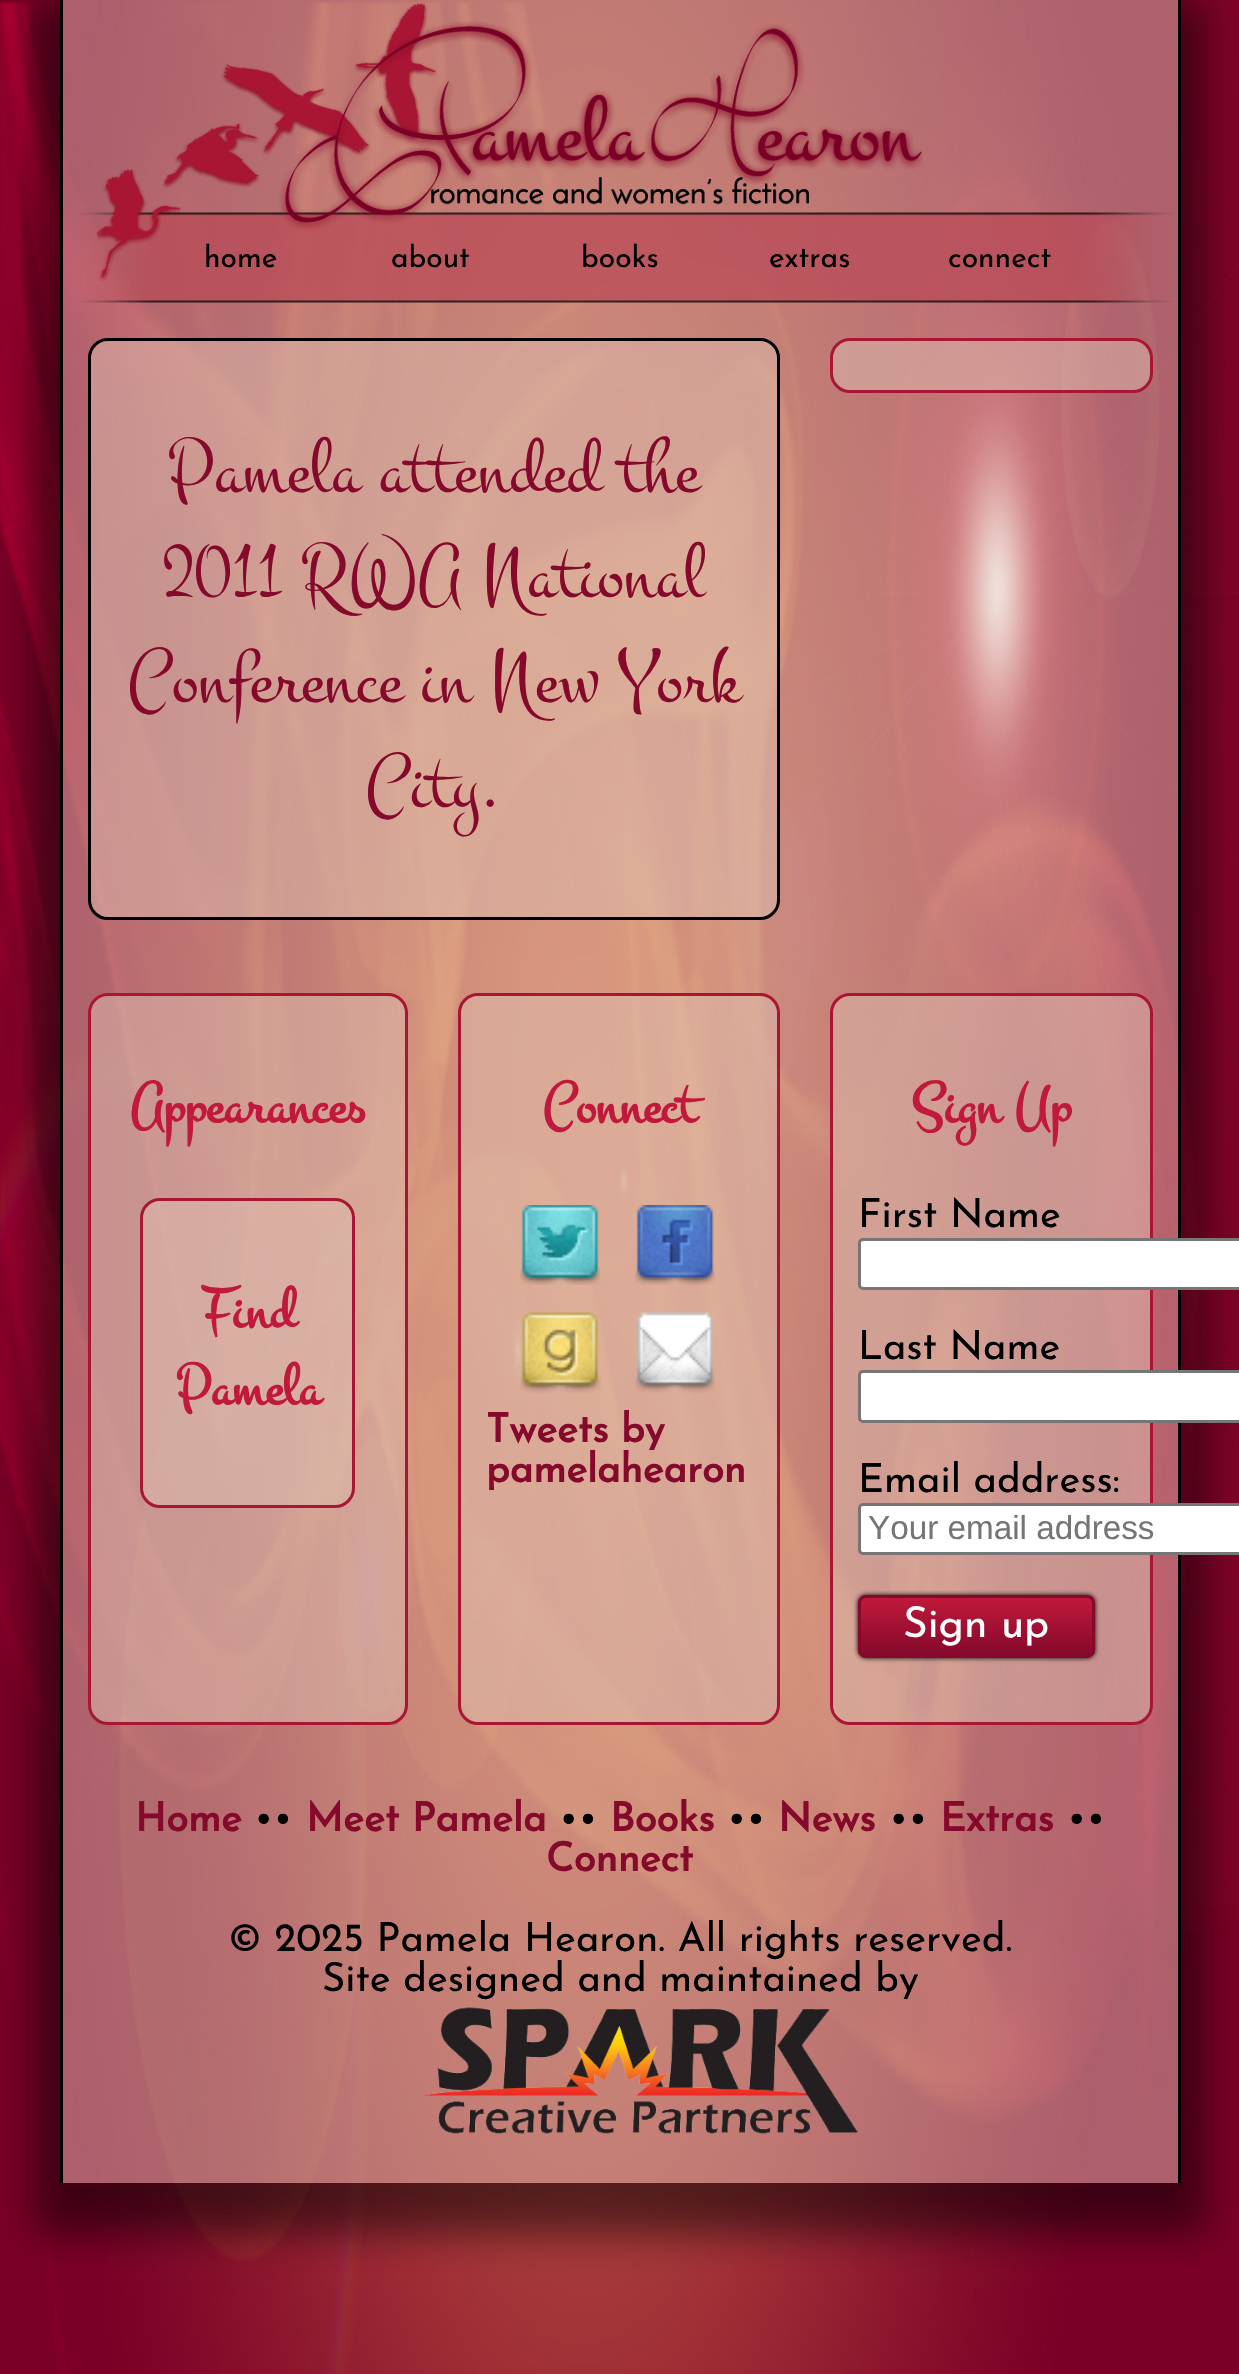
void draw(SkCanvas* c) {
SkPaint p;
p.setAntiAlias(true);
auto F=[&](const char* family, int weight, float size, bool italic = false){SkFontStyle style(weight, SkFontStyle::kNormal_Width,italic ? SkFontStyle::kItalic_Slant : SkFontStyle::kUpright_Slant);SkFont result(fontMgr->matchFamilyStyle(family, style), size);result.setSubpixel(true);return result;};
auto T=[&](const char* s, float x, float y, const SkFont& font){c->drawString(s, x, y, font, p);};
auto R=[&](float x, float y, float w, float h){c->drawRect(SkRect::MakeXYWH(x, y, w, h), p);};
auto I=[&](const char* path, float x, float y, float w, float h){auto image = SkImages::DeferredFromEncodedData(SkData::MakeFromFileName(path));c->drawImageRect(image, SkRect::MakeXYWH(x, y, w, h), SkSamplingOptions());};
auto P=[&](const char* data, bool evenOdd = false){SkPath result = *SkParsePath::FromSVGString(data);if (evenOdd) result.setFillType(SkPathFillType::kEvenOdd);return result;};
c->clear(0xffffffff);
I("1.png",0,0,1239,2374);
c->save();
c->clipPath(P("M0 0h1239v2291h-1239zm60 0h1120v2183h-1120z",true),true);
p.setColor(0x80000000);
p.setMaskFilter(SkMaskFilter::MakeBlur(kNormal_SkBlurStyle, 19));
c->drawRect(SkRect::MakeXYWH(35,0,1170,2233),p);
p.setMaskFilter(nullptr);
c->restore();
p.setColor(0x80debdaf);
R(63,0,1115,2183);
p.setColor(0xff000000);
R(1178,0,3,2183);
R(60,0,3,2183);
I("2.png",96,3,827,278);
I("4.png",80,212,1093,91);
I("3.png",96,3,827,278);
auto f1 = F("Josefin Sans",100,30);
T("home",204,267,f1);
T("about",391,267,f1);
T("books",581,267,f1);
T("extras",769,267,f1);
T("connect",948,267,f1);
p.setColor(0x80debdaf);
c->drawRoundRect(SkRect::MakeXYWH(831.5,339.5,320,52),18.5,18.5,p);
p.setStroke(true);
p.setStrokeWidth(3);
p.setColor(0xffa91634);
c->drawRoundRect(SkRect::MakeXYWH(831.5,339.5,320,52),18.5,18.5,p);
p.setStroke(false);
p.setColor(0x80debdaf);
c->drawRoundRect(SkRect::MakeXYWH(89.5,339.5,689,579),18.5,18.5,p);
p.setStroke(true);
p.setColor(0xff000000);
c->drawRoundRect(SkRect::MakeXYWH(89.5,339.5,689,579),18.5,18.5,p);
auto f2 = F("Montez",400,80);
p.setStroke(false);
p.setColor(0xff84092b);
T("Pamela attended the",168,491,f2);
T("2011 RWA National",163,596,f2);
T("Conference in New York",128,701,f2);
T("City.",366,806,f2);
p.setColor(0x80debdaf);
c->drawRoundRect(SkRect::MakeXYWH(89.5,994.5,317,729),18.5,18.5,p);
p.setStroke(true);
p.setColor(0xffa91634);
c->drawRoundRect(SkRect::MakeXYWH(89.5,994.5,317,729),18.5,18.5,p);
auto f3 = F("Montez",700,60);
p.setStroke(false);
p.setColor(0xffc0193b);
T("Appearances",130,1122,f3);
p.setColor(0x80debdaf);
c->drawRoundRect(SkRect::MakeXYWH(141.5,1199.5,212,307),18.5,18.5,p);
p.setStroke(true);
p.setColor(0xffa91634);
c->drawRoundRect(SkRect::MakeXYWH(141.5,1199.5,212,307),18.5,18.5,p);
p.setStroke(false);
p.setColor(0xffc0193b);
T("Find",201,1327,f3);
T("Pamela",176,1404,f3);
p.setColor(0x80debdaf);
c->drawRoundRect(SkRect::MakeXYWH(459.5,994.5,319,729),18.5,18.5,p);
p.setStroke(true);
p.setColor(0xffa91634);
c->drawRoundRect(SkRect::MakeXYWH(459.5,994.5,319,729),18.5,18.5,p);
p.setStroke(false);
p.setColor(0xffc0193b);
T("Connect",543,1122,f3);
I("5.png",520,1205,80,80);
I("6.png",635,1205,80,80);
I("7.png",520,1312,81,81);
I("8.png",635,1312,80,81);
auto f4 = F("Josefin Sans",700,40);
p.setColor(0xff84092b);
T("Tweets by",486,1442,f4);
T("pamelahearon",486,1482,f4);
p.setColor(0x80debdaf);
c->drawRoundRect(SkRect::MakeXYWH(831.5,994.5,320,729),18.5,18.5,p);
p.setStroke(true);
p.setColor(0xffa91634);
c->drawRoundRect(SkRect::MakeXYWH(831.5,994.5,320,729),18.5,18.5,p);
p.setStroke(false);
p.setColor(0xffc0193b);
T("Sign Up",911,1122,f3);
auto f5 = F("Josefin Sans",100,40);
p.setColor(0xff000000);
T("First Name",858,1227,f5);
p.setColor(0xffffffff);
c->drawRoundRect(SkRect::MakeXYWH(859.5,1239.5,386,49),3.5,3.5,p);
p.setStroke(true);
p.setColor(0xff767676);
c->drawRoundRect(SkRect::MakeXYWH(859.5,1239.5,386,49),3.5,3.5,p);
p.setStroke(false);
p.setColor(0xff000000);
T("Last Name",858,1359,f5);
p.setColor(0xffffffff);
c->drawRoundRect(SkRect::MakeXYWH(859.5,1371.5,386,50),3.5,3.5,p);
p.setStroke(true);
p.setColor(0xff767676);
c->drawRoundRect(SkRect::MakeXYWH(859.5,1371.5,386,50),3.5,3.5,p);
p.setStroke(false);
p.setColor(0xff000000);
T("Email address:",858,1492,f5);
p.setColor(0xffffffff);
c->drawRoundRect(SkRect::MakeXYWH(859.5,1504.5,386,49),3.5,3.5,p);
p.setStroke(true);
p.setColor(0xff767676);
c->drawRoundRect(SkRect::MakeXYWH(859.5,1504.5,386,49),3.5,3.5,p);
auto f6 = F("Liberation Sans",400,33.25);
p.setStroke(false);
p.setColor(0xff757575);
T("Your email address",868,1539,f6);
p.setColor(0xff000000);
p.setMaskFilter(SkMaskFilter::MakeBlur(kNormal_SkBlurStyle, 2.5));
c->drawRoundRect(SkRect::MakeXYWH(858,1595,237,63),8,8,p);
p.setMaskFilter(nullptr);
c->save();
c->clipPath(P("M866 1595h221c4.5 0 8 3.5 8 8v47c0 4.5-3.5 8-8 8h-221c-4.5 0-8-3.5-8-8v-47c0-4.5 3.5-8 8-8z"),true);
{
const SkColor colors[] = {0xffc0193b,0xff84092b};
const float stops[] = {0,1};
const SkPoint ends[] = {{976,1598}, {976,1655}};
p.setShader(SkGradientShader::MakeLinear(ends, colors, stops, 2, SkTileMode::kClamp));
p.setAlpha(255);
}
R(858,1598,237,57);
c->restore();
p.setStroke(true);
p.setShader(nullptr);
p.setColor(0xff84092b);
c->drawRoundRect(SkRect::MakeXYWH(859.5,1596.5,234,60),6.5,6.5,p);
auto f7 = F("Josefin Sans",100,42.5);
p.setStroke(false);
p.setColor(0xffffffff);
T("Sign up",903,1637,f7);
p.setColor(0xff84092b);
T("Home",135,1831,f4);
p.setColor(0xff000000);
T("••",254,1831,f5);
p.setColor(0xff84092b);
T("Meet Pamela",306,1831,f4);
p.setColor(0xff000000);
T("••",559,1831,f5);
p.setColor(0xff84092b);
T("Books",610,1831,f4);
p.setColor(0xff000000);
T("••",727,1831,f5);
p.setColor(0xff84092b);
T("News",778,1831,f4);
p.setColor(0xff000000);
T("••",889,1831,f5);
p.setColor(0xff84092b);
T("Extras",940,1831,f4);
p.setColor(0xff000000);
T("••",1067,1831,f5);
p.setColor(0xff84092b);
T("Connect",546,1871,f4);
p.setColor(0xff000000);
T("© 2025 Pamela Hearon. All rights reserved.",228,1951,f5);
T("Site designed and maintained by",322,1991,f5);
I("9.png",422,2007,436,127);
}
